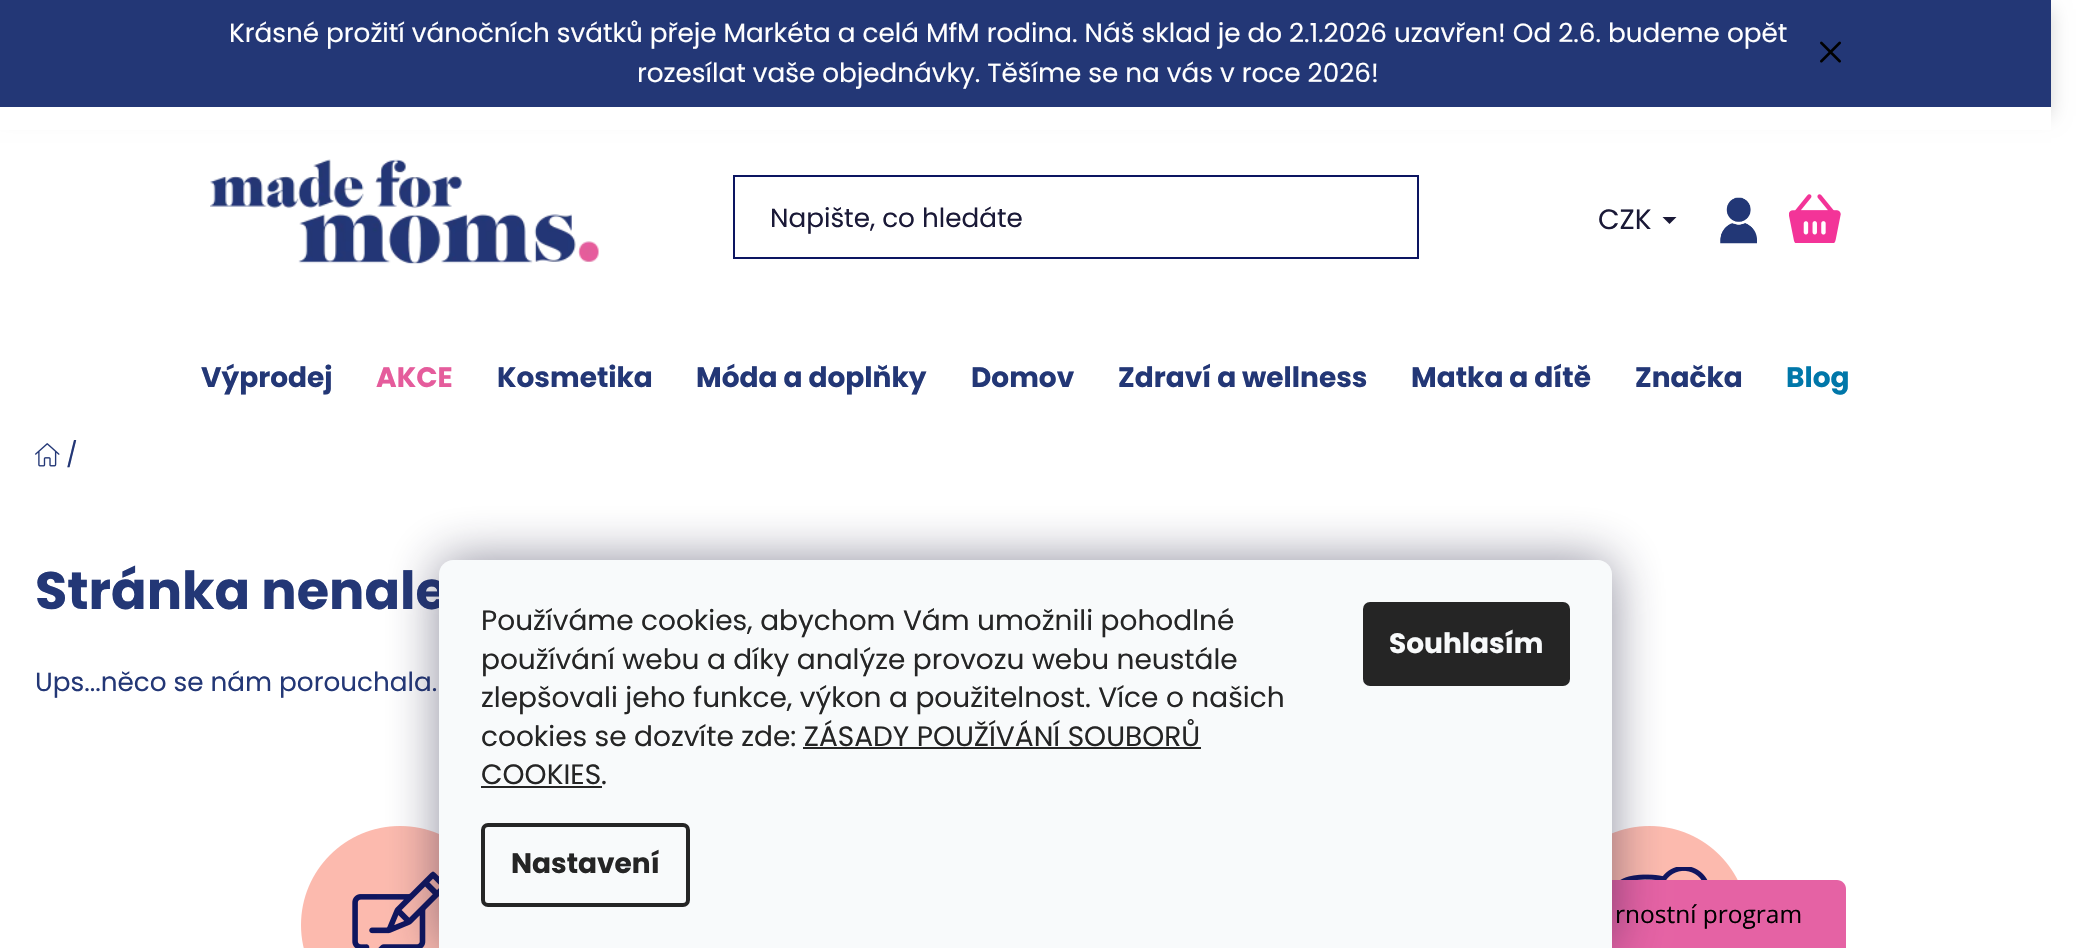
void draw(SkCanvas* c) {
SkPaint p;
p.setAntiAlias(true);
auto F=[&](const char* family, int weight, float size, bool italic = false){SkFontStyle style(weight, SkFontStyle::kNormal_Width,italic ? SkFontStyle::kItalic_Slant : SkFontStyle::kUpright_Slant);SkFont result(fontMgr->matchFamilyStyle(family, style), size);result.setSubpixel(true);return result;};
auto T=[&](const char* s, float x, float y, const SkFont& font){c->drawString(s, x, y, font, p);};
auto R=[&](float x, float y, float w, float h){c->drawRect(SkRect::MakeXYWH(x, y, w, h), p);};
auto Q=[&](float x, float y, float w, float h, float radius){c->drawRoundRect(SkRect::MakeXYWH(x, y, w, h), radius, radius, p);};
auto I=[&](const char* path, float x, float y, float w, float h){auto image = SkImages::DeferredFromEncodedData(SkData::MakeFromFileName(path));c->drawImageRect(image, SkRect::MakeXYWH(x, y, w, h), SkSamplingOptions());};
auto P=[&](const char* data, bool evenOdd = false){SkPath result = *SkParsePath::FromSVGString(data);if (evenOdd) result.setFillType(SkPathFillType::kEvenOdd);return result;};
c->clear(0xffffffff);
p.setColor(0x29000000);
p.setMaskFilter(SkMaskFilter::MakeBlur(kNormal_SkBlurStyle, 9));
c->drawRect(SkRect::MakeXYWH(0,9,2051,107),p);
p.setMaskFilter(nullptr);
p.setColor(0xff233776);
R(0,0,2051,107);
auto f1 = F("Poppins",400,26.25);
p.setColor(0xffffffff);
T("Krásné prožití vánočních svátků přeje Markéta a celá MfM rodina. Náš sklad je do 2.1.2026 uzavřen! Od 2.6. budeme opět",229,42,f1);
T("rozesílat vaše objednávky. Těšíme se na vás v roce 2026!",637,82,f1);
I("1.png",1820,41,21,22);
R(0,107,2051,23);
I("2.png",210,159,389,105);
p.setStroke(true);
p.setStrokeWidth(2);
p.setColor(0xff0c1561);
c->drawRect(SkRect::MakeXYWH(734,176,684,82),p);
p.setStroke(false);
p.setColor(0xff1a1937);
T("Napište, co hledáte",770,227,f1);
auto f2 = F("Poppins",400,28);
T("CZK",1598,229,f2);
c->drawPath(P("M1662.5 217h14l-7 7z"),p);
I("3.png",1720,197,37,47);
I("4.png",1789,194,52,49);
auto f3 = F("Poppins",700,28);
p.setColor(0xff233776);
T("Výprodej",201,387,f3);
p.setColor(0xffe55c9c);
T("AKCE",376,387,f3);
p.setColor(0xff233776);
T("Kosmetika",497,387,f3);
T("Móda a doplňky",696,387,f3);
T("Domov",971,387,f3);
T("Zdraví a wellness",1118,387,f3);
T("Matka a dítě",1411,387,f3);
T("Značka",1635,387,f3);
p.setColor(0xff0077a9);
T("Blog",1786,387,f3);
I("5.png",35,443,25,24);
auto f4 = F("Poppins",400,24.5);
p.setColor(0xff233776);
T("/",66,463,f4);
auto f5 = F("Poppins",700,52.5);
T("Stránka nenale",35,609,f5);
T("Ups...něco se nám porouchala.",35,691,f1);
I("6.png",301,826,138,122);
I("7.png",1612,826,126,54);
p.setColor(0xffe562a4);
c->drawPath(P("M1553 880h284c5 0 9 4 9 9v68h-302v-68c0-5 4-9 9-9z"),p);
p.setColor(0x801b1939);
p.setMaskFilter(SkMaskFilter::MakeBlur(kNormal_SkBlurStyle, 26));
c->drawRoundRect(SkRect::MakeXYWH(439,560,1173,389),14,14,p);
p.setMaskFilter(nullptr);
p.setColor(0xfff8fafb);
c->drawPath(P("M453 560h1145c7.5 0 14 6.5 14 14v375h-1173v-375c0-7.5 6.5-14 14-14z"),p);
p.setColor(0xff252525);
T("Používáme cookies, abychom Vám umožnili pohodlné",481,630,f2);
T("používání webu a díky analýze provozu webu neustále",481,669,f2);
T("zlepšovali jeho funkce, výkon a použitelnost. Více o našich",481,707,f2);
T("cookies se dozvíte zde: ZÁSADY POUŽÍVÁNÍ SOUBORŮ",481,746,f2);
T("COOKIES.",481,784,f2);
R(803,747,398,2);
R(481,786,121,2);
p.setStroke(true);
p.setStrokeWidth(4);
c->drawRoundRect(SkRect::MakeXYWH(483,825,205,80),5,5,p);
p.setStroke(false);
T("Nastavení",511,873,f3);
Q(1363,602,207,84,7);
p.setColor(0xfff8fafb);
T("Souhlasím",1389,653,f3);
auto f6 = F("Open Sans",400,24.5);
p.setColor(0xff000000);
T("rnostní program",1615,923,f6);
}
